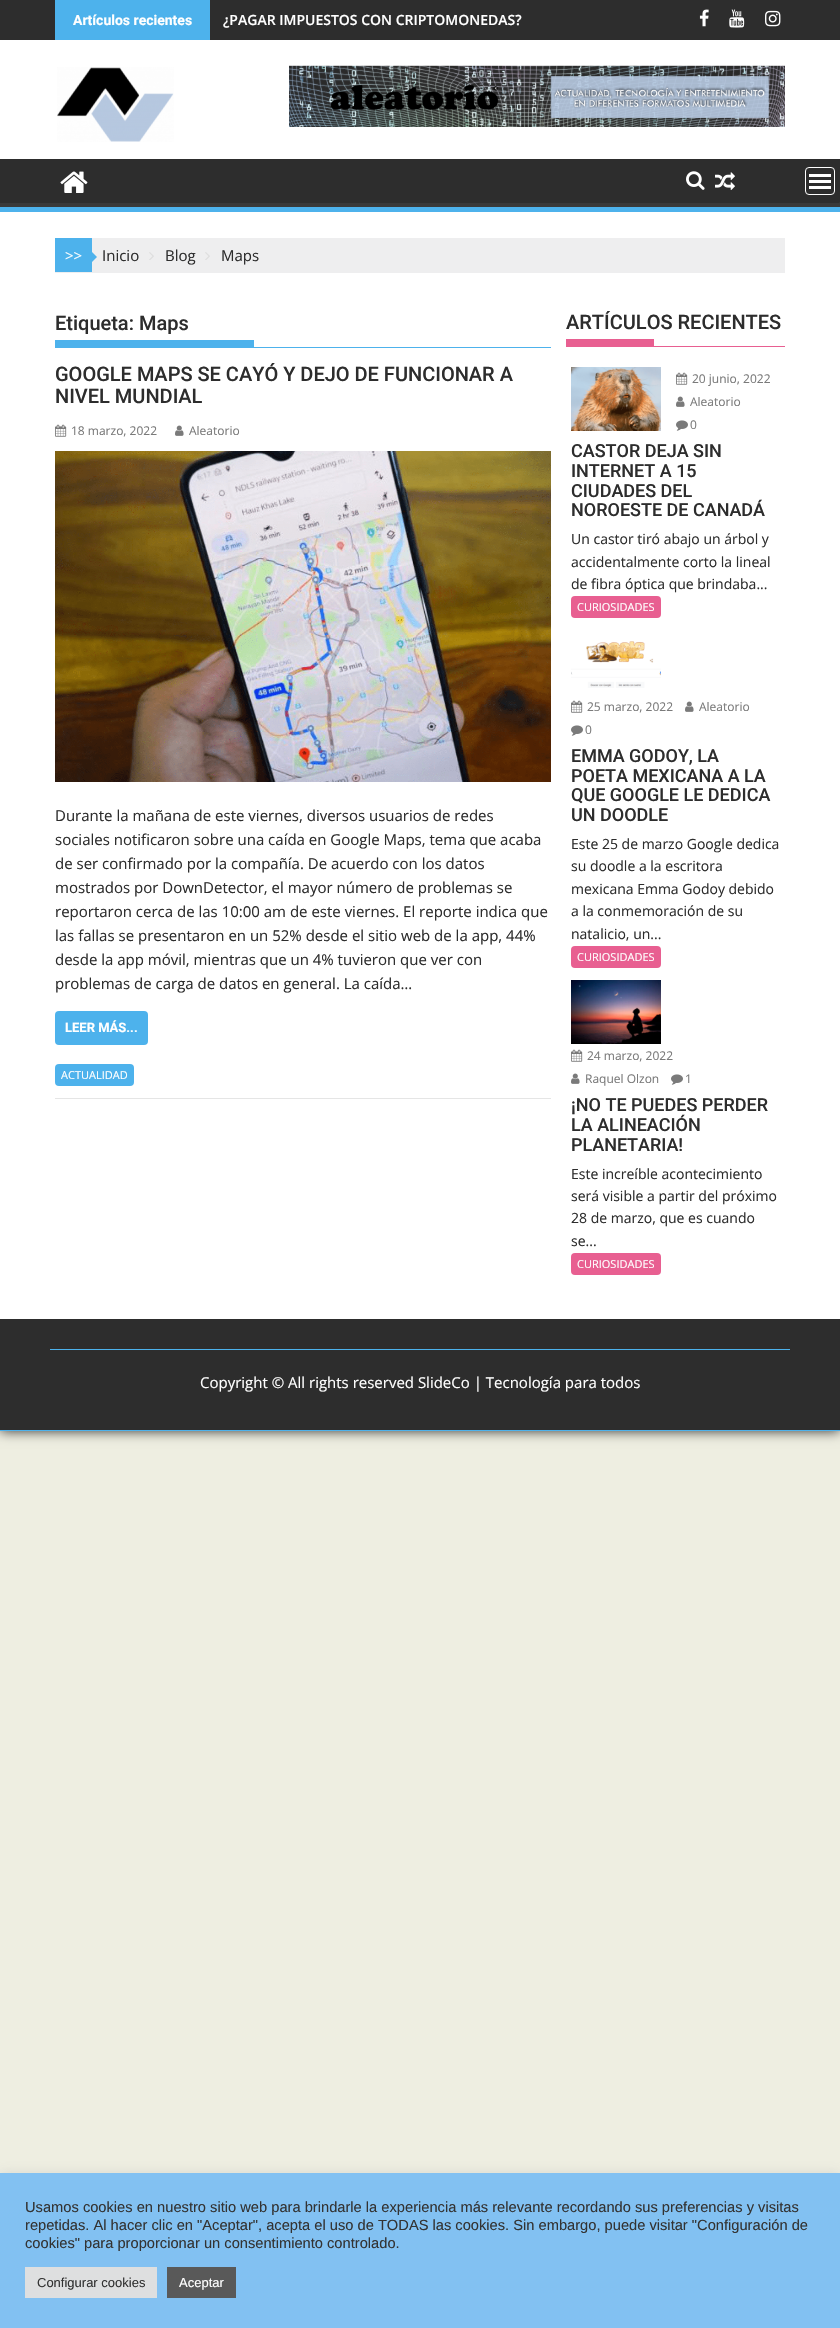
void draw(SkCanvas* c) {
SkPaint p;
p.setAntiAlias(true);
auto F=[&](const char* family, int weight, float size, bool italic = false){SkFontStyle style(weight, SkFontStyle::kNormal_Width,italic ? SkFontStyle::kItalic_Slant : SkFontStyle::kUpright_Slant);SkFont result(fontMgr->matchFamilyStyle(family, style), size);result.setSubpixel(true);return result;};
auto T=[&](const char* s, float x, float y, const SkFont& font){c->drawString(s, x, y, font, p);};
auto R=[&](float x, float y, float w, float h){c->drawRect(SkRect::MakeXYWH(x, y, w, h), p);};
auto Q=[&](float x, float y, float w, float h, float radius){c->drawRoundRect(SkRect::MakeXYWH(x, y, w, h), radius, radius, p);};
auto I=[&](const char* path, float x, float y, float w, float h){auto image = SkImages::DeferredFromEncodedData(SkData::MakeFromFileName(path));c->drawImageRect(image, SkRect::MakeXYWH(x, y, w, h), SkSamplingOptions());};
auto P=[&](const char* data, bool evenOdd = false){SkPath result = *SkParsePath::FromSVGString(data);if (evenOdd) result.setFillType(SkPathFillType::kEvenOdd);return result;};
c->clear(0xffeeeee1);
p.setColor(0xff2d2d2d);
p.setMaskFilter(SkMaskFilter::MakeBlur(kNormal_SkBlurStyle, 6));
c->drawRect(SkRect::MakeXYWH(0,0,840,1431),p);
p.setMaskFilter(nullptr);
p.setColor(0xffffffff);
R(0,40,840,1279);
p.setColor(0xff2d2d2d);
R(0,0,840,40);
p.setColor(0xff4db2ec);
R(55,0,155,40);
auto f1 = F("Roboto",700,14);
p.setColor(0xffffffff);
T("Artículos recientes",73,25,f1);
auto f2 = F("Open Sans",600,14);
T("¿PAGAR IMPUESTOS CON CRIPTOMONEDAS?",223,25,f2);
I("1.png",699,9,10,18);
I("2.png",729,9,16,19);
I("3.png",765,10,16,17);
I("4.png",57,67,117,75);
I("5.png",289,65,496,62);
p.setColor(0xff2d2d2d);
R(0,159,840,44);
c->save();
c->clipRect(SkRect::MakeXYWH(0,159,840,48));
p.setColor(0xff393939);
c->drawPath(P("M-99 60h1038v246h-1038zm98 93h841c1 1 0 15 0 17v32l-1 1h-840h-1v-49z",true),p);
c->restore();
p.setColor(0xff4db2ec);
R(0,207,840,5);
I("6.png",60,171,28,22);
I("7.png",686,171,19,19);
I("8.png",715,172,20,18);
p.setStroke(true);
p.setStrokeWidth(1);
p.setColor(0xffffffff);
c->drawRoundRect(SkRect::MakeXYWH(805.5,167.5,29,27),3.5,3.5,p);
p.setStroke(false);
R(809,186,22,3);
R(809,180,22,3);
R(809,174,22,3);
p.setColor(0xffeeeeef);
R(55,238,730,35);
p.setColor(0xff4db2ec);
R(55,238,37,34);
auto f3 = F("Open Sans",400,15);
p.setColor(0xffffffff);
T(">>",65,261,f3);
p.setColor(0xff4db2ec);
c->drawPath(P("M92 262v-10l5 5z"),p);
p.setColor(0xff2d2d2d);
T("Inicio",102,261,f3);
I("9.png",149,252,5,8);
T("Blog",165,261,f3);
I("9.png",205,252,5,8);
T("Maps",221,261,f3);
p.setColor(0xff4db2ec);
R(55,347,496,1);
auto f4 = F("Roboto",500,20);
p.setColor(0xff2d2d2d);
T("Etiqueta: Maps",55,330,f4);
p.setColor(0xff4db2ec);
R(55,340,199,7);
p.setColor(0xffe5e5e5);
R(55,1098,496,1);
p.setColor(0xff2d2d2d);
T("GOOGLE MAPS SE CAYÓ Y DEJO DE FUNCIONAR A",55,381,f4);
T("NIVEL MUNDIAL",55,403,f4);
I("10.png",55,424,12,13);
auto f5 = F("Open Sans",400,12);
p.setColor(0xff7a7a7a);
T("18 marzo, 2022",71,435,f5);
I("11.png",175,425,9,11);
T("Aleatorio",189,435,f5);
I("12.png",55,451,496,331);
p.setColor(0xff2d2d2d);
T("Durante la mañana de este viernes, diversos usuarios de redes",55,821,f3);
T("sociales notificaron sobre una caída en Google Maps, tema que acaba",55,845,f3);
T("de ser confirmado por la compañía. De acuerdo con los datos",55,869,f3);
T("mostrados por DownDetector, el mayor número de problemas se",55,893,f3);
T("reportaron cerca de las 10:00 am de este viernes. El reporte indica que",55,917,f3);
T("las fallas se presentaron en un 52% desde el sitio web de la app, 44%",55,941,f3);
T("desde la app móvil, mientras que un 4% tuvieron que ver con",55,965,f3);
T("problemas de carga de datos en general. La caída…",55,989,f3);
p.setColor(0xff4db2ec);
Q(55,1011,93,34,4);
auto f6 = F("Roboto",700,13);
p.setColor(0xffffffff);
T("LEER MÁS...",65,1032,f6);
p.setColor(0xff4db2ec);
Q(55,1064,79,22,4);
auto f7 = F("Open Sans",400,11);
p.setColor(0xffffffff);
T("ACTUALIDAD",61,1079,f7);
p.setColor(0xffe85f91);
R(566,346,219,1);
p.setColor(0xff2d2d2d);
T("ARTÍCULOS RECIENTES",566,329,f4);
p.setColor(0xffe85f91);
R(566,339,88,7);
I("13.png",571,367,90,64);
I("10.png",676,372,12,13);
p.setColor(0xff7a7a7a);
T("20 junio, 2022",692,383,f5);
I("11.png",676,396,9,11);
T("Aleatorio",690,406,f5);
I("14.png",676,420,12,11);
T("0",690,429,f5);
auto f8 = F("Roboto",500,18);
p.setColor(0xff2d2d2d);
T("CASTOR DEJA SIN",571,457,f8);
T("INTERNET A 15",571,477,f8);
T("CIUDADES DEL",571,497,f8);
T("NOROESTE DE CANADÁ",571,516,f8);
auto f9 = F("Open Sans",400,14);
T("Un castor tiró abajo un árbol y",571,544,f9);
T("accidentalmente corto la lineal",571,567,f9);
T("de fibra óptica que brindaba...",571,589,f9);
p.setColor(0xffe85f91);
Q(571,596,90,22,4);
p.setColor(0xffffffff);
T("CURIOSIDADES",577,611,f7);
I("15.png",571,641,90,47);
I("10.png",571,700,12,13);
p.setColor(0xff7a7a7a);
T("25 marzo, 2022",587,711,f5);
I("11.png",685,701,9,11);
T("Aleatorio",699,711,f5);
I("14.png",571,725,12,11);
T("0",585,734,f5);
p.setColor(0xff2d2d2d);
T("EMMA GODOY, LA",571,762,f8);
T("POETA MEXICANA A LA",571,782,f8);
T("QUE GOOGLE LE DEDICA",571,801,f8);
T("UN DOODLE",571,821,f8);
T("Este 25 de marzo Google dedica",571,849,f9);
T("su doodle a la escritora",571,871,f9);
T("mexicana Emma Godoy debido",571,894,f9);
T("a la conmemoración de su",571,916,f9);
T("natalicio, un...",571,939,f9);
p.setColor(0xffe85f91);
Q(571,946,90,22,4);
p.setColor(0xffffffff);
T("CURIOSIDADES",577,961,f7);
I("16.png",571,980,90,64);
I("10.png",571,1049,12,13);
p.setColor(0xff7a7a7a);
T("24 marzo, 2022",587,1060,f5);
I("11.png",571,1073,9,11);
T("Raquel Olzon",585,1083,f5);
I("14.png",671,1074,12,11);
T("1",685,1083,f5);
p.setColor(0xff2d2d2d);
T("¡NO TE PUEDES PERDER",571,1111,f8);
T("LA ALINEACIÓN",571,1131,f8);
T("PLANETARIA!",571,1151,f8);
T("Este increíble acontecimiento",571,1179,f9);
T("será visible a partir del próximo",571,1201,f9);
T("28 de marzo, que es cuando",571,1223,f9);
T("se...",571,1246,f9);
p.setColor(0xffe85f91);
Q(571,1253,90,22,4);
p.setColor(0xffffffff);
T("CURIOSIDADES",577,1268,f7);
p.setColor(0xff2d2d2d);
R(0,1319,840,111);
p.setColor(0xff4db2ec);
R(0,1430,840,1);
R(50,1349,740,1);
p.setColor(0xffffffff);
T("Copyright © All rights reserved SlideCo | Tecnología para todos",200,1388,f3);
p.setColor(0x4dacabab);
p.setMaskFilter(SkMaskFilter::MakeBlur(kNormal_SkBlurStyle, 5));
c->drawRect(SkRect::MakeXYWH(0,2172,840,155),p);
p.setMaskFilter(nullptr);
p.setColor(0xff82c1f2);
R(0,2173,840,155);
auto f10 = F("Liberation Sans",400,14.67);
p.setColor(0xff333333);
T("Usamos cookies en nuestro sitio web para brindarle la experiencia más relevante recordando sus preferencias y visitas",25,2212,f10);
T("repetidas. Al hacer clic en \"Aceptar\", acepta el uso de TODAS las cookies. Sin embargo, puede visitar \"Configuración de",25,2230,f10);
T("cookies\" para proporcionar un consentimiento controlado.",25,2248,f10);
p.setColor(0xffdedfe0);
R(25,2267,132,31);
auto f11 = F("Liberation Sans",400,13);
p.setColor(0xff333333);
T("Configurar cookies",37,2287,f11);
p.setColor(0xff595959);
R(167,2267,69,31);
p.setColor(0xffffffff);
T("Aceptar",179,2287,f11);
}
